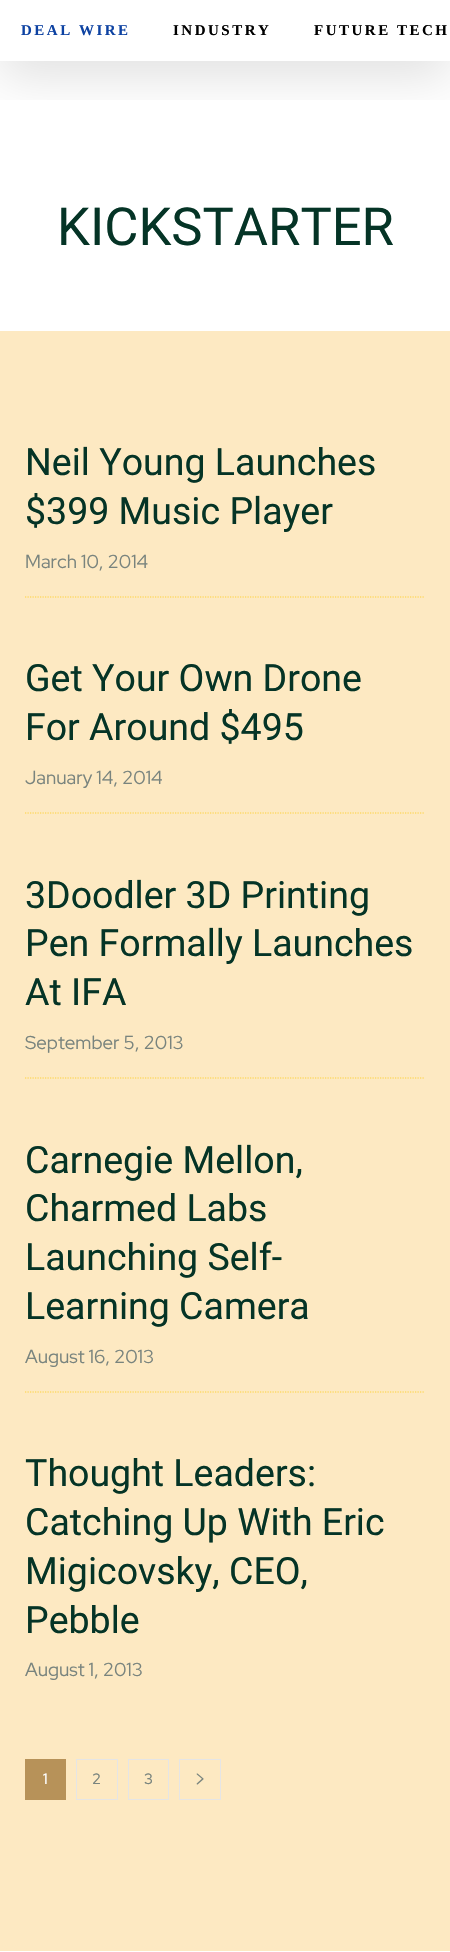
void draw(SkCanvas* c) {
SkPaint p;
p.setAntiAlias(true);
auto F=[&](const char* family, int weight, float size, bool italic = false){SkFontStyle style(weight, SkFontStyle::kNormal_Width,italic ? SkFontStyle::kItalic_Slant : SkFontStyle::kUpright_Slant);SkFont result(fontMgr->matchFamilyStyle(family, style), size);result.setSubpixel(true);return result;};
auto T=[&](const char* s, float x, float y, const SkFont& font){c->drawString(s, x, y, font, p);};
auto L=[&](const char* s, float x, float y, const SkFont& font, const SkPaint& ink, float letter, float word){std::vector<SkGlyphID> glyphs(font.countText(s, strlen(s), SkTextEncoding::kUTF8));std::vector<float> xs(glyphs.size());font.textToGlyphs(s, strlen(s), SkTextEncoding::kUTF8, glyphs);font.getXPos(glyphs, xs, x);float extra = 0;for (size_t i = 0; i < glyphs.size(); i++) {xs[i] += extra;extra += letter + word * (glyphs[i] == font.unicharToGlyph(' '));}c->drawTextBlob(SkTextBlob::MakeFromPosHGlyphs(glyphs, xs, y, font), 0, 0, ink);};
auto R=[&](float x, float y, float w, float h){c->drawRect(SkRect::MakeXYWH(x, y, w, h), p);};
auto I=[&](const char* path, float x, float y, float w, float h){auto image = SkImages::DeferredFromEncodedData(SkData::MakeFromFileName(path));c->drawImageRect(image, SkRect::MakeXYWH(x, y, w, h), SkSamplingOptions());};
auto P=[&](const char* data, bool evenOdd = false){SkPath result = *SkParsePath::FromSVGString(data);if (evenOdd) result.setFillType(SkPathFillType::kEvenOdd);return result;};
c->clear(0xffffffff);
c->save();
c->clipRect(SkRect::MakeXYWH(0,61,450,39));
p.setColor(0x1f000000);
p.setMaskFilter(SkMaskFilter::MakeBlur(kNormal_SkBlurStyle, 25));
c->drawRect(SkRect::MakeXYWH(0,14,450,62),p);
p.setMaskFilter(nullptr);
c->restore();
auto f1 = F("Liberation Serif",700,15);
p.setColor(0xff0d42a2);
L("DEAL WIRE",21,35,f1,p,2.5,0);
p.setColor(0xff000000);
L("INDUSTRY",173,35,f1,p,2.5,0);
L("FUTURE TECH",314,35,f1,p,2.5,0);
auto f2 = F("Roboto",400,52.5);
p.setColor(0xff053426);
T("KICKSTARTER",57,245,f2);
p.setColor(0xfffde9c2);
R(0,331,450,1620);
auto f3 = F("Roboto",400,37.5);
p.setColor(0xff053426);
T("Neil Young Launches",25,475,f3);
T("$399 Music Player",25,524,f3);
auto f4 = F("Red Hat Display",400,18.75);
p.setColor(0xff79847e);
T("March 10, 2014",25,568,f4);
p.setStroke(true);
p.setStrokeWidth(1.2);
p.setColor(0xffffd13a);
p.setPathEffect(SkDashPathEffect::Make({{1.25f,1.25f}}, 0));
c->drawPath(P("M25 597h400"),p);
p.setPathEffect(nullptr);
p.setStroke(false);
p.setColor(0xff053426);
T("Get Your Own Drone",25,691,f3);
T("For Around $495",25,740,f3);
p.setColor(0xff79847e);
T("January 14, 2014",25,784,f4);
p.setStroke(true);
p.setColor(0xffffd13a);
p.setPathEffect(SkDashPathEffect::Make({{1.25f,1.25f}}, 0));
c->drawPath(P("M25 813h400"),p);
p.setPathEffect(nullptr);
p.setStroke(false);
p.setColor(0xff053426);
T("3Doodler 3D Printing",25,908,f3);
T("Pen Formally Launches",25,956,f3);
T("At IFA",25,1005,f3);
p.setColor(0xff79847e);
T("September 5, 2013",25,1049,f4);
p.setStroke(true);
p.setColor(0xffffd13a);
p.setPathEffect(SkDashPathEffect::Make({{1.25f,1.25f}}, 0));
c->drawPath(P("M25 1078h400"),p);
p.setPathEffect(nullptr);
p.setStroke(false);
p.setColor(0xff053426);
T("Carnegie Mellon,",25,1173,f3);
T("Charmed Labs",25,1221,f3);
T("Launching Self-",25,1270,f3);
T("Learning Camera",25,1319,f3);
p.setColor(0xff79847e);
T("August 16, 2013",25,1363,f4);
p.setStroke(true);
p.setColor(0xffffd13a);
p.setPathEffect(SkDashPathEffect::Make({{1.25f,1.25f}}, 0));
c->drawPath(P("M25 1392h400"),p);
p.setPathEffect(nullptr);
p.setStroke(false);
p.setColor(0xff053426);
T("Thought Leaders:",25,1486,f3);
T("Catching Up With Eric",25,1535,f3);
T("Migicovsky, CEO,",25,1584,f3);
T("Pebble",25,1633,f3);
p.setColor(0xff79847e);
T("August 1, 2013",25,1676,f4);
p.setColor(0xffb79259);
R(25,1759,41,41);
auto f5 = F("Red Hat Display",500,15);
p.setColor(0xffffffff);
T("1",43,1784,f5);
p.setStroke(true);
p.setStrokeWidth(1);
p.setColor(0xffe5e5e5);
c->drawRect(SkRect::MakeXYWH(76.5,1759.5,41,40),p);
p.setStroke(false);
p.setColor(0xff79847e);
T("2",92,1784,f5);
p.setStroke(true);
p.setColor(0xffe5e5e5);
c->drawRect(SkRect::MakeXYWH(128.5,1759.5,40,40),p);
p.setStroke(false);
p.setColor(0xff79847e);
T("3",144,1784,f5);
p.setStroke(true);
p.setColor(0xffe5e5e5);
c->drawRect(SkRect::MakeXYWH(179.5,1759.5,41,40),p);
I("1.png",196,1773,8,12);
}
